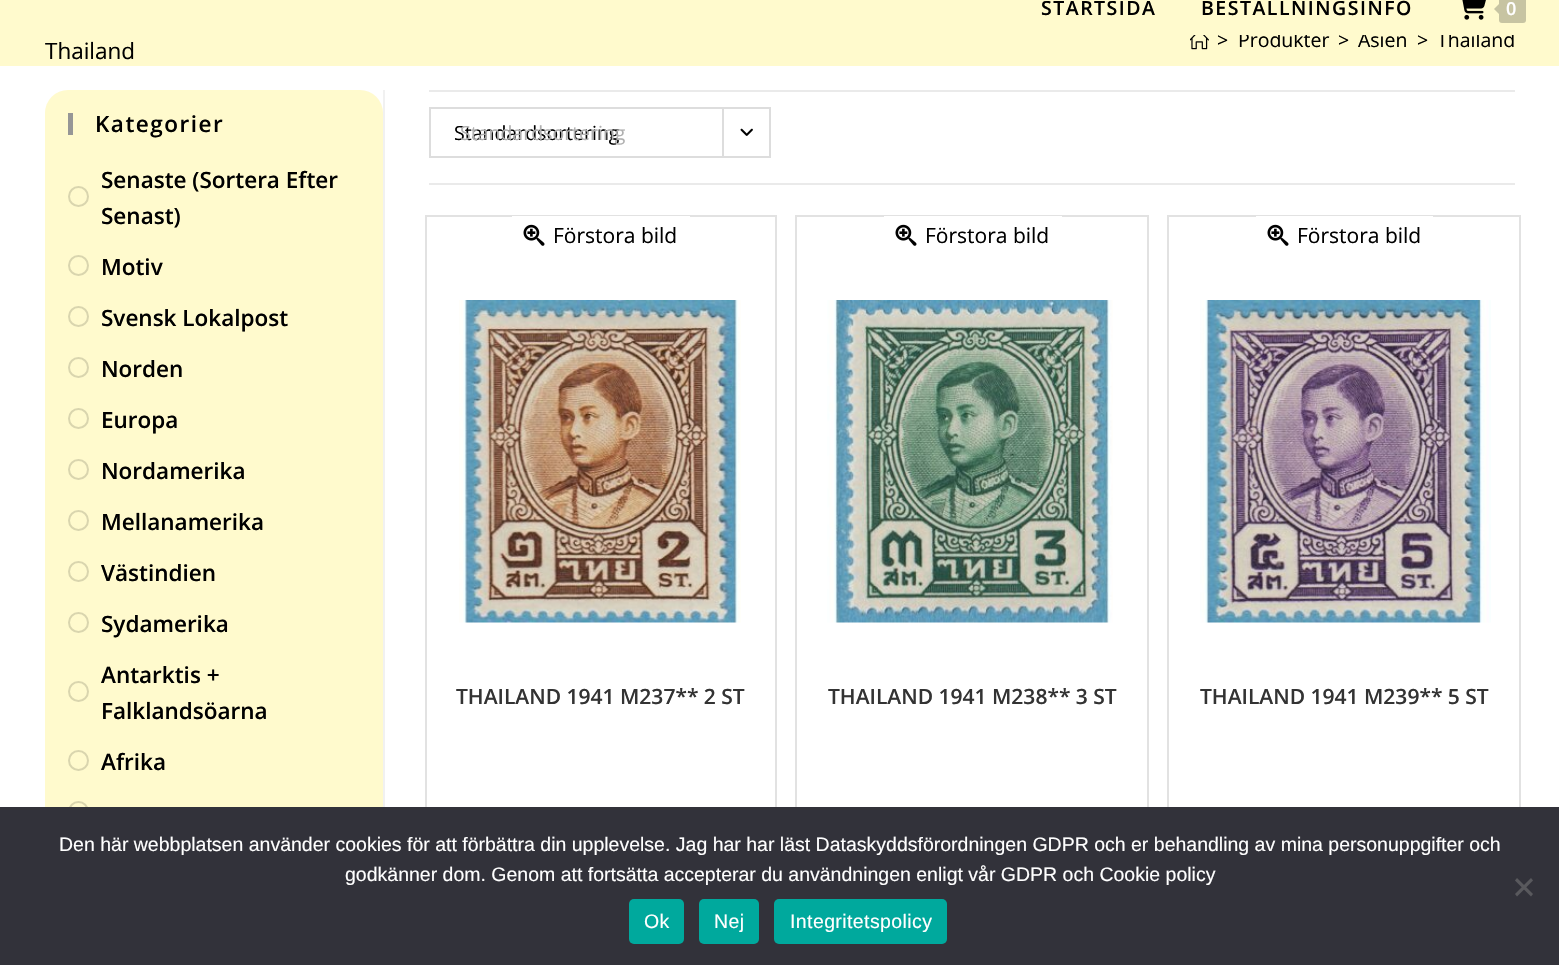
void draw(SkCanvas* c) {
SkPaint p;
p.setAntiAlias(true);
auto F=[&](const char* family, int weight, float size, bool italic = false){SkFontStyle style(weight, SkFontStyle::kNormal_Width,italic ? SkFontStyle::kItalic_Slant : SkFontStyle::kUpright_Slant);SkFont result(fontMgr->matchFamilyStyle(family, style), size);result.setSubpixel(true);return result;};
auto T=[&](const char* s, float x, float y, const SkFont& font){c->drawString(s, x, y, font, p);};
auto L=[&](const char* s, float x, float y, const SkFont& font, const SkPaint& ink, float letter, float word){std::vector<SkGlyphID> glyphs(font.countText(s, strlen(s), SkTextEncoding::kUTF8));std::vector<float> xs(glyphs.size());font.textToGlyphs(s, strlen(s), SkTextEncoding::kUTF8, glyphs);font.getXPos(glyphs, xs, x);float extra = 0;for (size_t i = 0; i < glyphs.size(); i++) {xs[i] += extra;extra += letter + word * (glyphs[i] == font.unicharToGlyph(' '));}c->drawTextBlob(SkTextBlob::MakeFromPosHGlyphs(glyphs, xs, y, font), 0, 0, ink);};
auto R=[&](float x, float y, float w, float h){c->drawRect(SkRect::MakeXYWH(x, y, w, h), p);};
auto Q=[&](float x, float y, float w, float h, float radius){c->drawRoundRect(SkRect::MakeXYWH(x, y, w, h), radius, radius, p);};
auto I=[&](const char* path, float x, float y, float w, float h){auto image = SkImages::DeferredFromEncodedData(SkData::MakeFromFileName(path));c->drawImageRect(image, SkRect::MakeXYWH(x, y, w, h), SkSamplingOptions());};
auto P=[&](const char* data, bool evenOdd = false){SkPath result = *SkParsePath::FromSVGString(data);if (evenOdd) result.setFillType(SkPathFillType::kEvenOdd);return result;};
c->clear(0xffffffff);
p.setColor(0xfffffacd);
R(0,35,1559,31);
auto f1 = F("Open Sans",400,19.5);
p.setColor(0xff000000);
T("Produkter",1238,47,f1);
T("Asien",1358,47,f1);
T("Thailand",1437,47,f1);
p.setColor(0xfffffacd);
R(0,0,1559,35);
auto f2 = F("Open Sans",600,19.5);
p.setColor(0xff000000);
L("STARTSIDA",1041,15,f2,p,1.5,0);
L("BESTÄLLNINGSINFO",1201,15,f2,p,1.5,0);
I("1.png",1462,0,24,20);
p.setColor(0xffc7c4a2);
Q(1499,-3,27,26,3);
c->drawPath(P("M1501.5 1.5v15l-7.5-7.5z"),p);
auto f3 = F("Open Sans",600,18);
p.setColor(0xffffffff);
L("0",1506,15,f3,p,1.5,0);
auto f4 = F("Open Sans",400,22.5);
p.setColor(0xff000000);
T("Thailand",45,59,f4);
I("2.png",1190,35,19,15);
T(">",1217,47,f1);
T(">",1338,47,f1);
T(">",1417,47,f1);
p.setColor(0xfffffacd);
Q(45,90,338,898,23);
p.setColor(0xff969696);
R(68,113,5,22);
auto f5 = F("Open Sans",600,22.5);
p.setColor(0xff000000);
L("Kategorier",95,132,f5,p,1.5,0);
T("Senaste (Sortera Efter",101,188,f5);
p.setStroke(true);
p.setStrokeWidth(2);
p.setColor(0xffd9d5ae);
c->drawCircle(78.5,196.5,9.5,p);
p.setStroke(false);
p.setColor(0xff000000);
T("Senast)",101,224,f5);
p.setStroke(true);
p.setColor(0xffd9d5ae);
c->drawCircle(78.5,265.5,9.5,p);
p.setStroke(false);
p.setColor(0xff000000);
T("Motiv",101,275,f5);
p.setStroke(true);
p.setColor(0xffd9d5ae);
c->drawCircle(78.5,316.5,9.5,p);
p.setStroke(false);
p.setColor(0xff000000);
T("Svensk Lokalpost",101,326,f5);
p.setStroke(true);
p.setColor(0xffd9d5ae);
c->drawCircle(78.5,367.5,9.5,p);
p.setStroke(false);
p.setColor(0xff000000);
T("Norden",101,377,f5);
p.setStroke(true);
p.setColor(0xffd9d5ae);
c->drawCircle(78.5,418.5,9.5,p);
p.setStroke(false);
p.setColor(0xff000000);
T("Europa",101,428,f5);
p.setStroke(true);
p.setColor(0xffd9d5ae);
c->drawCircle(78.5,469.5,9.5,p);
p.setStroke(false);
p.setColor(0xff000000);
T("Nordamerika",101,479,f5);
p.setStroke(true);
p.setColor(0xffd9d5ae);
c->drawCircle(78.5,520.5,9.5,p);
p.setStroke(false);
p.setColor(0xff000000);
T("Mellanamerika",101,530,f5);
p.setStroke(true);
p.setColor(0xffd9d5ae);
c->drawCircle(78.5,571.5,9.5,p);
p.setStroke(false);
p.setColor(0xff000000);
T("Västindien",101,581,f5);
p.setStroke(true);
p.setColor(0xffd9d5ae);
c->drawCircle(78.5,622.5,9.5,p);
p.setStroke(false);
p.setColor(0xff000000);
T("Sydamerika",101,632,f5);
T("Antarktis +",101,683,f5);
p.setStroke(true);
p.setColor(0xffd9d5ae);
c->drawCircle(78.5,691.5,9.5,p);
p.setStroke(false);
p.setColor(0xff000000);
T("Falklandsöarna",101,719,f5);
p.setStroke(true);
p.setColor(0xffd9d5ae);
c->drawCircle(78.5,760.5,9.5,p);
p.setStroke(false);
p.setColor(0xff000000);
T("Afrika",101,770,f5);
p.setStroke(true);
p.setColor(0xffd9d5ae);
c->drawCircle(78.5,811.5,9.5,p);
p.setStroke(false);
p.setColor(0xfff1f1f1);
R(383,90,2,717);
p.setColor(0xffeaeaea);
R(429,90,1086,2);
R(429,183,1086,2);
p.setStroke(true);
p.setColor(0xffdddddd);
c->drawRect(SkRect::MakeXYWH(430,108,340,49),p);
p.setStroke(false);
p.setColor(0xff000000);
T("Standardsortering",454,140,f1);
p.setColor(0xffdddddd);
R(722,108,2,48);
I("3.png",740,128,13,8);
p.setColor(0xffb0b0b0);
T("Standardsortering",460,140,f1);
p.setStroke(true);
p.setColor(0xffe2e2e2);
c->drawRect(SkRect::MakeXYWH(426,216,350,692),p);
p.setStroke(false);
p.setColor(0xffffffff);
R(512,216,178,1);
I("4.png",523,224,22,22);
auto f6 = F("Open Sans",400,21);
p.setColor(0xff000000);
T("Förstora bild",553,243,f6);
I("5.png",459,300,282,323);
auto f7 = F("Open Sans",600,21);
p.setColor(0xff333333);
T("THAILAND 1941 M237** 2 ST",456,704,f7);
p.setStroke(true);
p.setColor(0xffe2e2e2);
c->drawRect(SkRect::MakeXYWH(796,216,352,692),p);
p.setStroke(false);
p.setColor(0xffffffff);
R(884,216,178,1);
I("4.png",895,224,22,22);
p.setColor(0xff000000);
T("Förstora bild",925,243,f6);
I("6.png",827,300,286,323);
p.setColor(0xff333333);
T("THAILAND 1941 M238** 3 ST",828,704,f7);
p.setStroke(true);
p.setColor(0xffe2e2e2);
c->drawRect(SkRect::MakeXYWH(1168,216,352,692),p);
p.setStroke(false);
p.setColor(0xffffffff);
R(1256,216,177,1);
I("4.png",1267,224,22,22);
p.setColor(0xff000000);
T("Förstora bild",1297,243,f6);
I("7.png",1200,300,291,323);
p.setColor(0xff333333);
T("THAILAND 1941 M239** 5 ST",1200,704,f7);
p.setColor(0xff32323a);
R(0,807,1559,158);
auto f8 = F("Liberation Sans",400,19.5);
p.setColor(0xffffffff);
T("Den här webbplatsen använder cookies för att förbättra din upplevelse. Jag har har läst Dataskyddsförordningen GDPR och er behandling av mina personuppgifter och",59,851,f8);
T("godkänner dom. Genom att fortsätta accepterar du användningen enligt vår GDPR och Cookie policy",345,881,f8);
p.setColor(0xff59595d);
c->drawPath(P("M1531 878l2 2.5l-16 16l-2-2.5z"),p);
c->drawPath(P("M1515 880.5l2-2.5l16 16l-2 2.5z"),p);
p.setColor(0xff00a99d);
Q(629,899,55,45,5);
p.setColor(0xffffffff);
L("Ok",644,928,f8,p,.4,0);
p.setColor(0xff00a99d);
Q(699,899,60,45,5);
p.setColor(0xffffffff);
L("Nej",714,928,f8,p,.4,0);
p.setColor(0xff00a99d);
Q(774,899,173,45,5);
p.setColor(0xffffffff);
L("Integritetspolicy",790,928,f8,p,.4,0);
}
